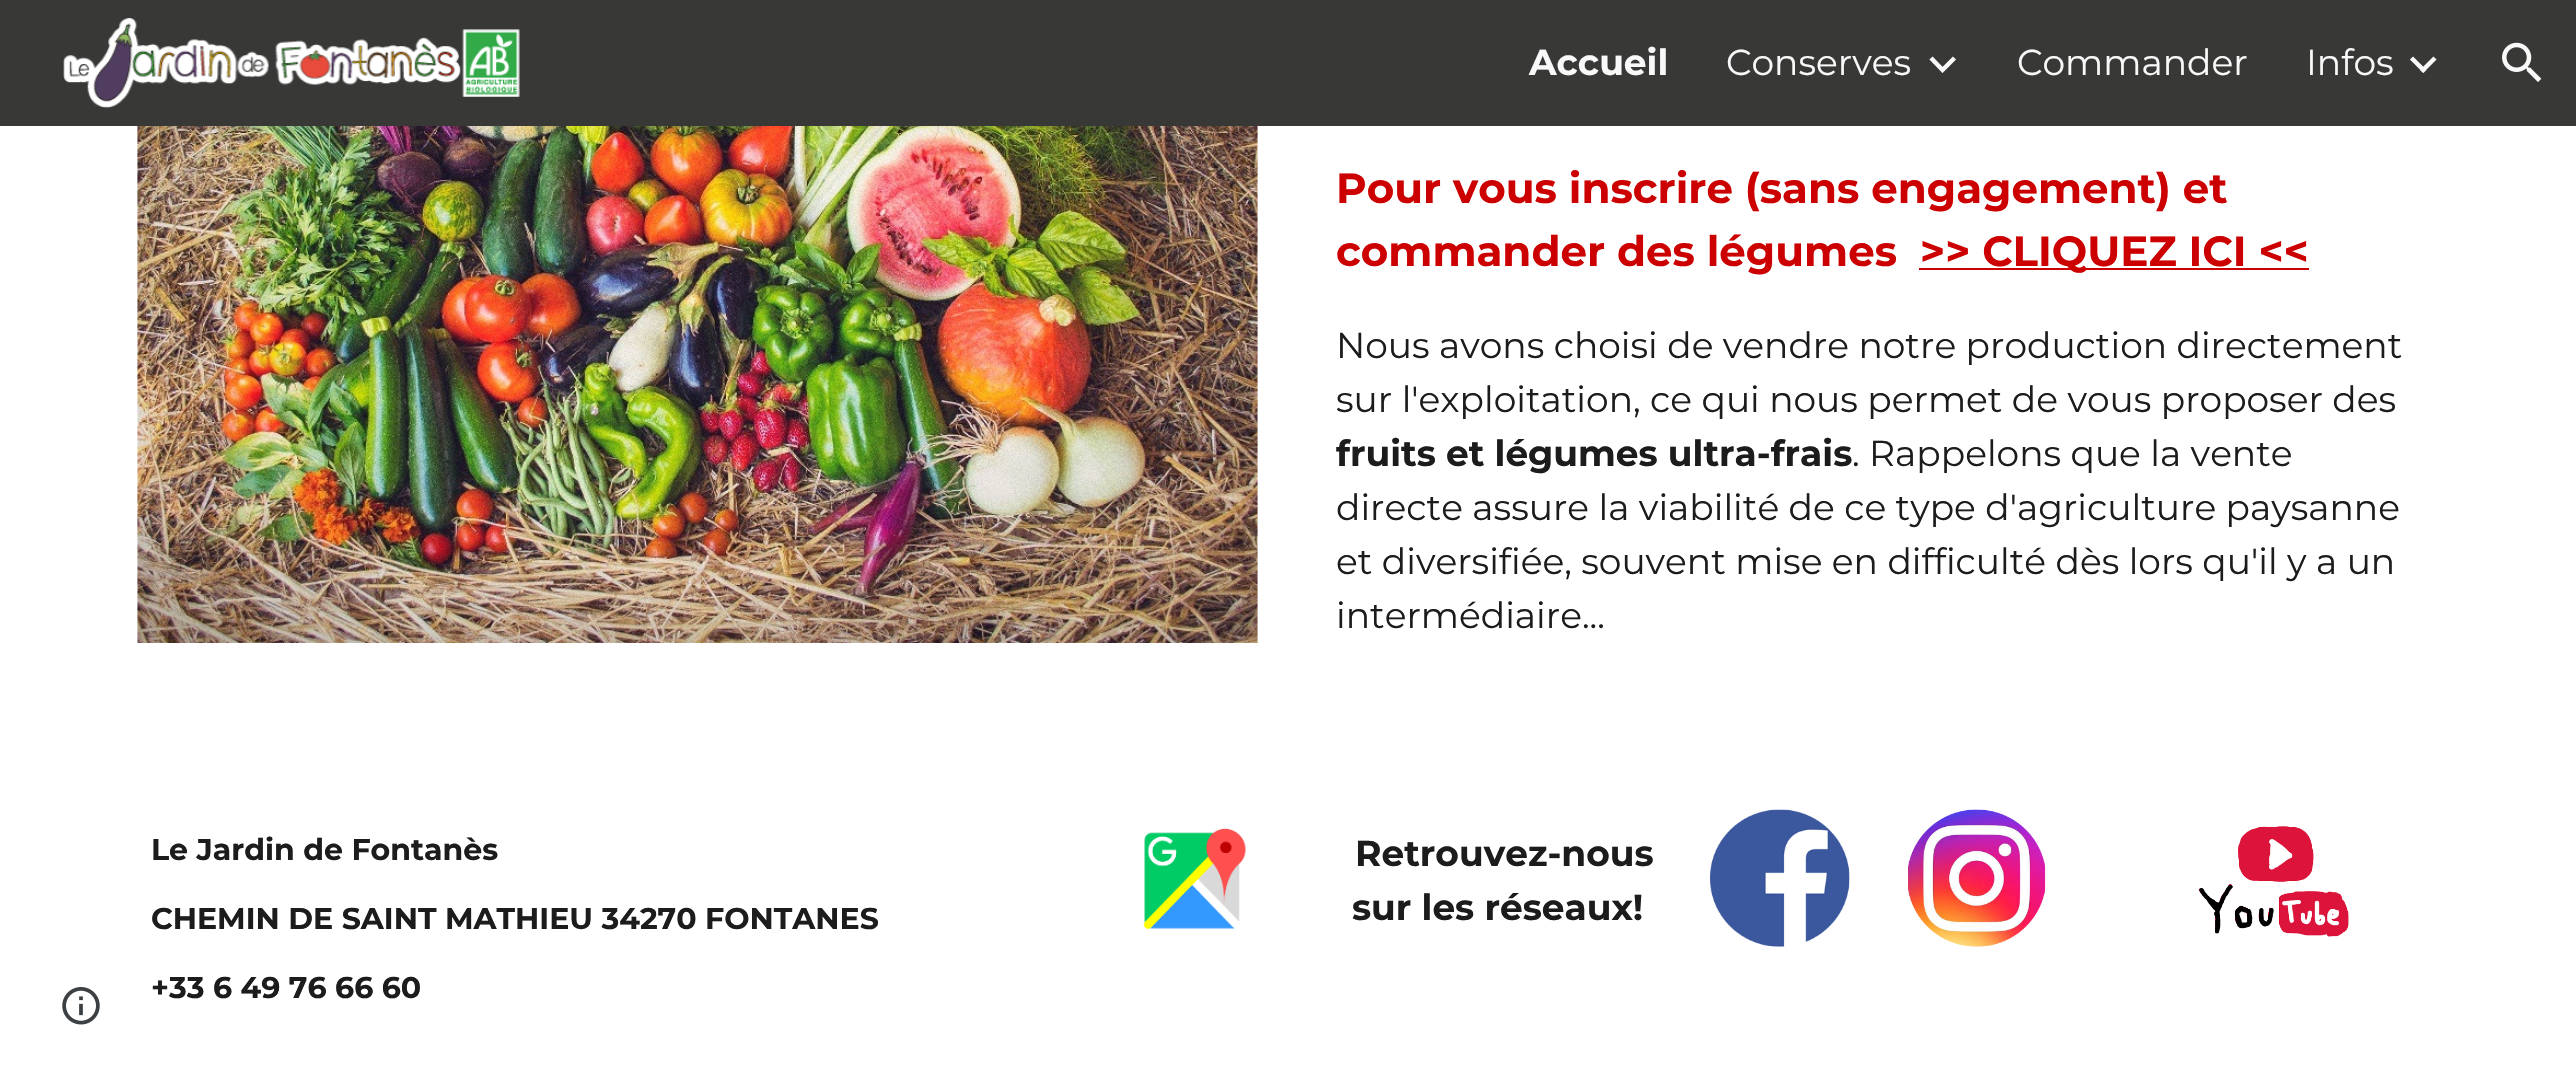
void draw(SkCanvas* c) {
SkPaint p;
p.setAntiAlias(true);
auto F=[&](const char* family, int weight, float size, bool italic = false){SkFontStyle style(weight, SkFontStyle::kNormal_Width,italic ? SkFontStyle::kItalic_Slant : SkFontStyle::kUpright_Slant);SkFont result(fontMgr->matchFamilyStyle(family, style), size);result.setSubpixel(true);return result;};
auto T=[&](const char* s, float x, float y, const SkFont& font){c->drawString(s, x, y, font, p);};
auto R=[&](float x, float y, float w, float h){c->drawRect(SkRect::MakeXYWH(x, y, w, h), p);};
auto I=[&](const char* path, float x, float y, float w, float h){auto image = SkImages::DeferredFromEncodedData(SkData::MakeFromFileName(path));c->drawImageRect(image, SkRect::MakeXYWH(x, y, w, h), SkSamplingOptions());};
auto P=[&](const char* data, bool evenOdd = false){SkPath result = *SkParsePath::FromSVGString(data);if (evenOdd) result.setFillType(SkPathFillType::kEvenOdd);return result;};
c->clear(0xffffffff);
p.setColor(0xff383937);
R(0,0,2576,126);
I("1.png",63,18,457,90);
auto f1 = F("Montserrat",700,36);
p.setColor(0xfff9f9f9);
T("Accueil",1529,75,f1);
auto f2 = F("Montserrat",400,36);
T("Conserves",1726,75,f2);
p.setStroke(true);
p.setStrokeWidth(4.5);
c->drawPath(P("M1931 58l13 13.5m-3 0l13.5-13.5"),p);
p.setStroke(false);
T("Commander",2017,75,f2);
T("Infos",2306,75,f2);
p.setStroke(true);
c->drawPath(P("M2411.5 58l13.5 13.5m-3.5 0l13.5-13.5"),p);
I("2.png",2502,42,40,40);
I("3.png",137,126,1121,517);
auto f3 = F("Montserrat",700,42);
p.setStroke(false);
p.setColor(0xffcc0000);
T("Pour vous inscrire (sans engagement) et",1336,203,f3);
T("commander des légumes",1336,266,f3);
R(1919,268,390,2);
T(">> CLIQUEZ ICI <<",1920,266,f3);
p.setColor(0xff1c1c1c);
T("Nous avons choisi de vendre notre production directement",1336,358,f2);
T("sur l'exploitation, ce qui nous permet de vous proposer des",1336,412,f2);
T("fruits et légumes ultra-frais",1336,466,f1);
T(". Rappelons que la vente",1852,466,f2);
T("directe assure la viabilité de ce type d'agriculture paysanne",1336,520,f2);
T("et diversifiée, souvent mise en difficulté dès lors qu'il y a un",1336,574,f2);
T("intermédiaire...",1336,628,f2);
auto f4 = F("Montserrat",700,30);
T("Le Jardin de Fontanès",151,860,f4);
T("CHEMIN DE SAINT MATHIEU 34270 FONTANES",151,929,f4);
T("+33 6 49 76 66 60",151,998,f4);
I("4.png",1143,828,103,102);
T("Retrouvez-nous",1355,866,f1);
T("sur les réseaux!",1352,920,f1);
I("5.png",1710,809,140,138);
I("6.png",1908,809,138,138);
I("7.png",2198,826,151,111);
I("8.png",62,987,38,38);
}
